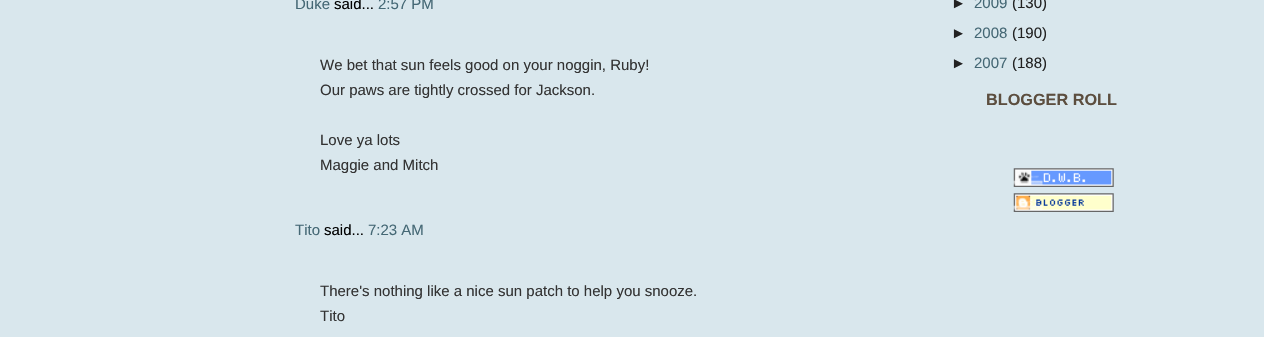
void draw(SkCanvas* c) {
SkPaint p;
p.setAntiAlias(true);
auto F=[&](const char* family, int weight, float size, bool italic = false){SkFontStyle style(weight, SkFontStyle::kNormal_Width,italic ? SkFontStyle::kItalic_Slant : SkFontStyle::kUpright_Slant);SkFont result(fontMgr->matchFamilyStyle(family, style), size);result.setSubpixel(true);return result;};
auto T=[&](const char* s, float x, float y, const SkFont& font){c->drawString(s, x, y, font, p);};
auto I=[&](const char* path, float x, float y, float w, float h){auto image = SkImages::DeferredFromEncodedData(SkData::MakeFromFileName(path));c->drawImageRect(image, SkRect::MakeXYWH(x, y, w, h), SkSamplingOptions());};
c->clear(0xffd9e7ed);
auto f1 = F("Liberation Sans",400,15);
p.setColor(0xff456875);
T("Duke",295,9,f1);
p.setColor(0xff000000);
T("said...",334,9,f1);
p.setColor(0xff456875);
T("2:57 PM",378,9,f1);
p.setColor(0xff333333);
T("We bet that sun feels good on your noggin, Ruby!",320,70,f1);
T("Our paws are tightly crossed for Jackson.",320,95,f1);
T("Love ya lots",320,145,f1);
T("Maggie and Mitch",320,170,f1);
p.setColor(0xff456875);
T("Tito",295,235,f1);
p.setColor(0xff000000);
T("said...",324,235,f1);
p.setColor(0xff456875);
T("7:23 AM",368,235,f1);
p.setColor(0xff333333);
T("There's nothing like a nice sun patch to help you snooze.",320,296,f1);
T("Tito",320,321,f1);
p.setColor(0xff222222);
T("►",951,8,f1);
p.setColor(0xff456875);
T("2009",974,8,f1);
p.setColor(0xff222222);
T("(130)",1012,8,f1);
T("►",951,38,f1);
p.setColor(0xff456875);
T("2008",974,38,f1);
p.setColor(0xff222222);
T("(190)",1012,38,f1);
T("►",951,68,f1);
p.setColor(0xff456875);
T("2007",974,68,f1);
p.setColor(0xff222222);
T("(188)",1012,68,f1);
auto f2 = F("Liberation Sans",700,16.25);
p.setColor(0xff5c4e3f);
T("BLOGGER ROLL",986,105,f2);
I("1.png",1013,168,101,19);
I("2.png",1013,193,101,19);
}
